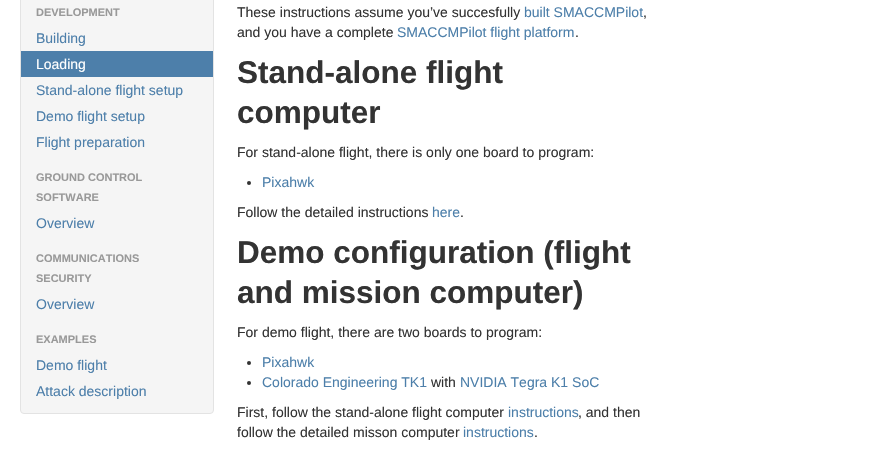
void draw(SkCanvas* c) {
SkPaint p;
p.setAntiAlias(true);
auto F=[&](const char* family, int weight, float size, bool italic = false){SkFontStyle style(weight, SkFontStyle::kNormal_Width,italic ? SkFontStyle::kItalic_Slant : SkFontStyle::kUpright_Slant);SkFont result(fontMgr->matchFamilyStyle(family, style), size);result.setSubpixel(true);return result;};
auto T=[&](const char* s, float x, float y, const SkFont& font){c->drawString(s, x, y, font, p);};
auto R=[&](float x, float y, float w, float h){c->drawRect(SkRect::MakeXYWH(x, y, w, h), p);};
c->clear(0xffffffff);
p.setColor(0xfff5f5f5);
c->drawRoundRect(SkRect::MakeXYWH(20.5,-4.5,193,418),3.5,3.5,p);
p.setStroke(true);
p.setStrokeWidth(1);
p.setColor(0xffe3e3e3);
c->drawRoundRect(SkRect::MakeXYWH(20.5,-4.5,193,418),3.5,3.5,p);
auto f1 = F("Liberation Sans",700,11);
p.setStroke(false);
p.setColor(0xff999999);
T("DEVELOPMENT",36,16,f1);
auto f2 = F("Liberation Sans",400,14);
p.setColor(0xff4d7faa);
T("Building",36,43,f2);
R(21,51,192,26);
p.setColor(0xffffffff);
T("Loading",36,69,f2);
p.setColor(0xff4d7faa);
T("Stand-alone flight setup",36,95,f2);
T("Demo flight setup",36,121,f2);
T("Flight preparation",36,147,f2);
p.setColor(0xff999999);
T("GROUND CONTROL",36,181,f1);
T("SOFTWARE",36,201,f1);
p.setColor(0xff4d7faa);
T("Overview",36,228,f2);
p.setColor(0xff999999);
T("COMMUNICATIONS",36,262,f1);
T("SECURITY",36,282,f1);
p.setColor(0xff4d7faa);
T("Overview",36,309,f2);
p.setColor(0xff999999);
T("EXAMPLES",36,343,f1);
p.setColor(0xff4d7faa);
T("Demo flight",36,370,f2);
T("Attack description",36,396,f2);
p.setColor(0xff333333);
T("These instructions assume you’ve succesfully",237,17,f2);
p.setColor(0xff4d7faa);
T("built SMACCMPilot",524,17,f2);
p.setColor(0xff333333);
T(",",643,17,f2);
T("and you have a complete",237,37,f2);
p.setColor(0xff4d7faa);
T("SMACCMPilot flight platform",397,37,f2);
p.setColor(0xff333333);
T(".",575,37,f2);
auto f3 = F("Liberation Sans",700,31.5);
T("Stand-alone flight",237,83,f3);
T("computer",237,123,f3);
T("For stand-alone flight, there is only one board to program:",237,157,f2);
c->drawCircle(249,183,2,p);
p.setColor(0xff4d7faa);
T("Pixahwk",262,187,f2);
p.setColor(0xff333333);
T("Follow the detailed instructions",237,217,f2);
p.setColor(0xff4d7faa);
T("here",432,217,f2);
p.setColor(0xff333333);
T(".",460,217,f2);
T("Demo configuration (flight",237,263,f3);
T("and mission computer)",237,303,f3);
T("For demo flight, there are two boards to program:",237,337,f2);
c->drawCircle(249,363,2,p);
p.setColor(0xff4d7faa);
T("Pixahwk",262,367,f2);
p.setColor(0xff333333);
c->drawCircle(249,383,2,p);
p.setColor(0xff4d7faa);
T("Colorado Engineering TK1",262,387,f2);
p.setColor(0xff333333);
T("with",431,387,f2);
p.setColor(0xff4d7faa);
T("NVIDIA Tegra K1 SoC",460,387,f2);
p.setColor(0xff333333);
T("First, follow the stand-alone flight computer",237,417,f2);
p.setColor(0xff4d7faa);
T("instructions",508,417,f2);
p.setColor(0xff333333);
T(", and then",578,417,f2);
T("follow the detailed misson computer",237,437,f2);
p.setColor(0xff4d7faa);
T("instructions",463,437,f2);
p.setColor(0xff333333);
T(".",534,437,f2);
}
